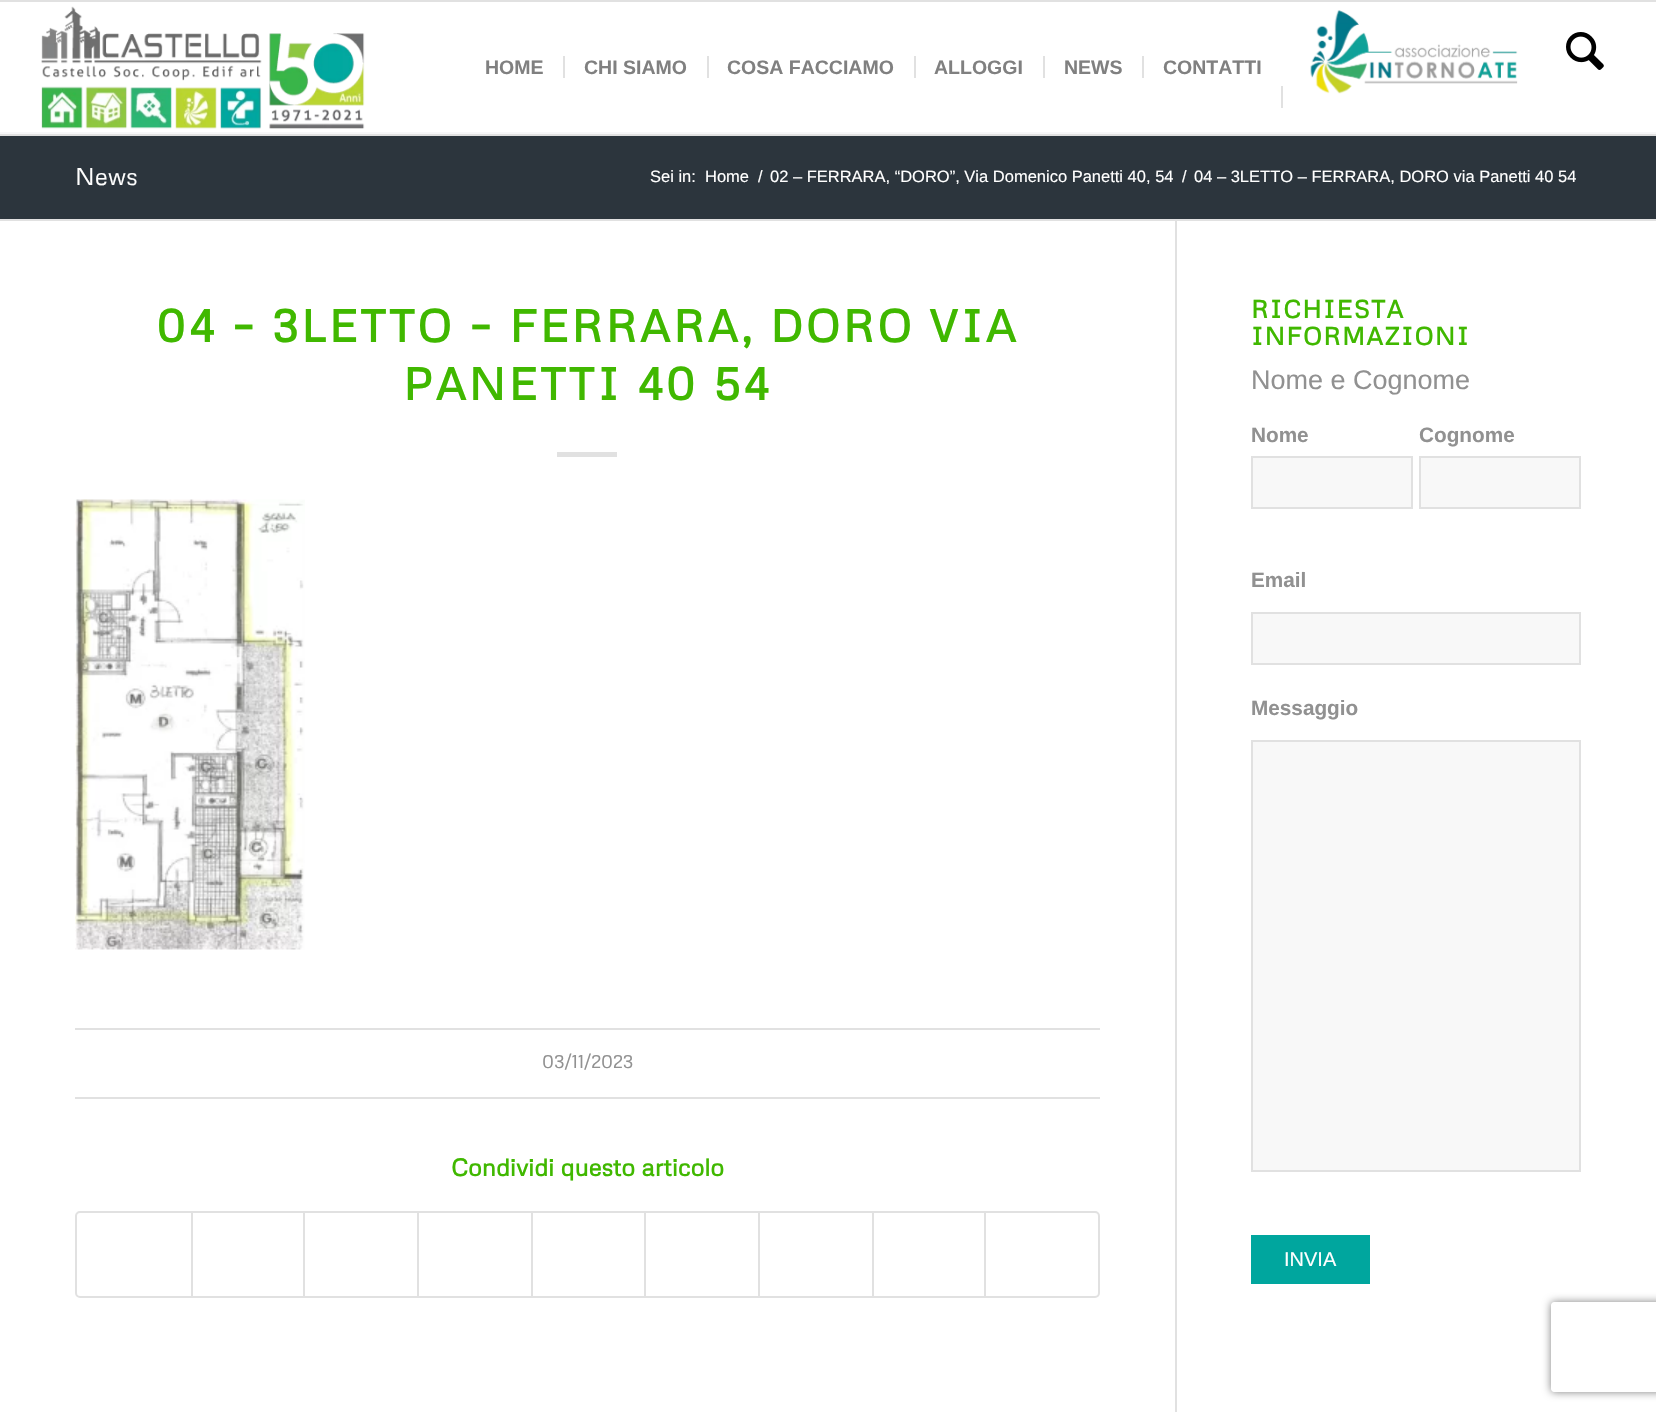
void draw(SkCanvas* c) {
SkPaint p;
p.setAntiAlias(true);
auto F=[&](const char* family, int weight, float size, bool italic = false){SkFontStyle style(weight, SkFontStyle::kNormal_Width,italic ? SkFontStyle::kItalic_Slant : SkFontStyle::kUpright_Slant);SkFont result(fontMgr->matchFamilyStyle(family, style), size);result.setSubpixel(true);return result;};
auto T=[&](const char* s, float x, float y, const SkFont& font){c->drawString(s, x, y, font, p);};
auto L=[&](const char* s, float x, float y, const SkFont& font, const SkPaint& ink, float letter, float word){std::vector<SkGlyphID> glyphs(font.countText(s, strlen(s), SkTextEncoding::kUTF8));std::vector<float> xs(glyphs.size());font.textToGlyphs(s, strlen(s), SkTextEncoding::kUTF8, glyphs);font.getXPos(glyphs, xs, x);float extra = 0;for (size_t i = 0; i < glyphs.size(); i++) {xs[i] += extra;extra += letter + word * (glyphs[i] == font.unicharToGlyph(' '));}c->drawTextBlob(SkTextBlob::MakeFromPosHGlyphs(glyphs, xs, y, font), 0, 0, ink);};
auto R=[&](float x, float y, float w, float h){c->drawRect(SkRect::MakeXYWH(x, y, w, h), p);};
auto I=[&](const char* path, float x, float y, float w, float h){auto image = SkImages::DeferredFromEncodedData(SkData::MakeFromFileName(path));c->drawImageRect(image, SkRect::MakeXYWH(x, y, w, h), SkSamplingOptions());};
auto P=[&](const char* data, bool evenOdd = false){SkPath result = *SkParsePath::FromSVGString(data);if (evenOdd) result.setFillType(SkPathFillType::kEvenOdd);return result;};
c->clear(0xffffffff);
p.setColor(0xffe1e1e1);
R(0,0,1656,2);
R(0,134,1656,2);
I("1.png",41,6,324,123);
auto f1 = F("Liberation Sans",700,19.5);
p.setColor(0xff808080);
T("HOME",485,74,f1);
T("CHI SIAMO",584,74,f1);
p.setColor(0xffe1e1e1);
R(563,56,2,22);
p.setColor(0xff808080);
T("COSA FACCIAMO",727,74,f1);
p.setColor(0xffe1e1e1);
R(707,56,2,22);
p.setColor(0xff808080);
T("ALLOGGI",934,74,f1);
p.setColor(0xffe1e1e1);
R(914,56,2,22);
p.setColor(0xff808080);
T("NEWS",1064,74,f1);
p.setColor(0xffe1e1e1);
R(1043,56,2,22);
p.setColor(0xff808080);
T("CONTATTI",1163,74,f1);
p.setColor(0xffe1e1e1);
R(1142,56,2,22);
R(1281,86,2,22);
I("2.png",1310,10,208,84);
I("3.png",1566,32,38,38);
p.setColor(0xff2c353d);
R(0,136,1656,83);
p.setColor(0xfff7f7f8);
R(0,132,1656,2);
auto f2 = F("Metrophobic",400,24);
p.setColor(0xffffffff);
T("News",75,185,f2);
auto f3 = F("Liberation Sans",400,16.5);
T("Sei in:",650,182,f3);
T("Home",705,182,f3);
T("/",758,182,f3);
T("02 – FERRARA, “DORO”, Via Domenico Panetti 40, 54",770,182,f3);
T("/",1182,182,f3);
T("04 – 3LETTO – FERRARA, DORO via Panetti 40 54",1194,182,f3);
p.setColor(0xffe1e1e1);
R(0,219,1656,2);
R(1175,221,2,1191);
auto f4 = F("Metrophobic",700,45);
p.setColor(0xff40b800);
L("04 – 3LETTO – FERRARA, DORO VIA",156,342,f4,p,3,0);
L("PANETTI 40 54",403,400,f4,p,3,0);
p.setColor(0xffe1e1e1);
R(557,452,60,5);
I("4.png",75,499,230,451);
R(75,1028,1025,2);
R(75,1097,1025,2);
auto f5 = F("Metrophobic",400,18.25);
p.setColor(0xff919191);
T("03/11/2023",542,1068,f5);
auto f6 = F("Metrophobic",700,24);
p.setColor(0xff40b800);
T("Condividi questo articolo",451,1176,f6);
p.setStroke(true);
p.setStrokeWidth(2);
p.setColor(0xffe1e1e1);
c->drawRoundRect(SkRect::MakeXYWH(76,1212,1023,85),4,4,p);
p.setStroke(false);
R(191,1212,2,84);
R(303,1212,2,84);
R(417,1212,2,84);
R(531,1212,2,84);
R(644,1212,2,84);
R(758,1212,2,84);
R(872,1212,2,84);
R(984,1212,2,84);
auto f7 = F("Metrophobic",700,24.75);
p.setColor(0xff40b800);
L("RICHIESTA",1251,318,f7,p,1.5,0);
L("INFORMAZIONI",1251,345,f7,p,1.5,0);
auto f8 = F("Liberation Sans",400,27);
p.setColor(0xff919191);
T("Nome e Cognome",1251,389,f8);
auto f9 = F("Liberation Sans",700,20.75);
T("Nome",1251,442,f9);
p.setColor(0xfff8f8f8);
c->drawRect(SkRect::MakeXYWH(1252,457,160,51),p);
p.setStroke(true);
p.setColor(0xffe1e1e1);
c->drawRect(SkRect::MakeXYWH(1252,457,160,51),p);
p.setStroke(false);
p.setColor(0xff919191);
T("Cognome",1419,442,f9);
p.setColor(0xfff8f8f8);
c->drawRect(SkRect::MakeXYWH(1420,457,160,51),p);
p.setStroke(true);
p.setColor(0xffe1e1e1);
c->drawRect(SkRect::MakeXYWH(1420,457,160,51),p);
p.setStroke(false);
p.setColor(0xff919191);
T("Email",1251,587,f9);
p.setColor(0xfff8f8f8);
c->drawRect(SkRect::MakeXYWH(1252,613,328,51),p);
p.setStroke(true);
p.setColor(0xffe1e1e1);
c->drawRect(SkRect::MakeXYWH(1252,613,328,51),p);
p.setStroke(false);
p.setColor(0xff919191);
T("Messaggio",1251,715,f9);
p.setColor(0xfff8f8f8);
c->drawRect(SkRect::MakeXYWH(1252,741,328,430),p);
p.setStroke(true);
p.setColor(0xffe1e1e1);
c->drawRect(SkRect::MakeXYWH(1252,741,328,430),p);
p.setStroke(false);
p.setColor(0xff00a69e);
R(1251,1235,119,49);
auto f10 = F("Liberation Sans",400,20);
p.setColor(0xffffffff);
T("INVIA",1284,1266,f10);
c->save();
c->clipPath(P("M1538 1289h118v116h-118zm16 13h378c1.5 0 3 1.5 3 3v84c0 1.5-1.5 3-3 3h-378c-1.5 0-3-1.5-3-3v-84c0-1.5 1.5-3 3-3z",true),true);
p.setColor(0xff808080);
p.setMaskFilter(SkMaskFilter::MakeBlur(kNormal_SkBlurStyle, 4));
c->drawRoundRect(SkRect::MakeXYWH(1551,1302,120,90),3,3,p);
p.setMaskFilter(nullptr);
c->restore();
}
